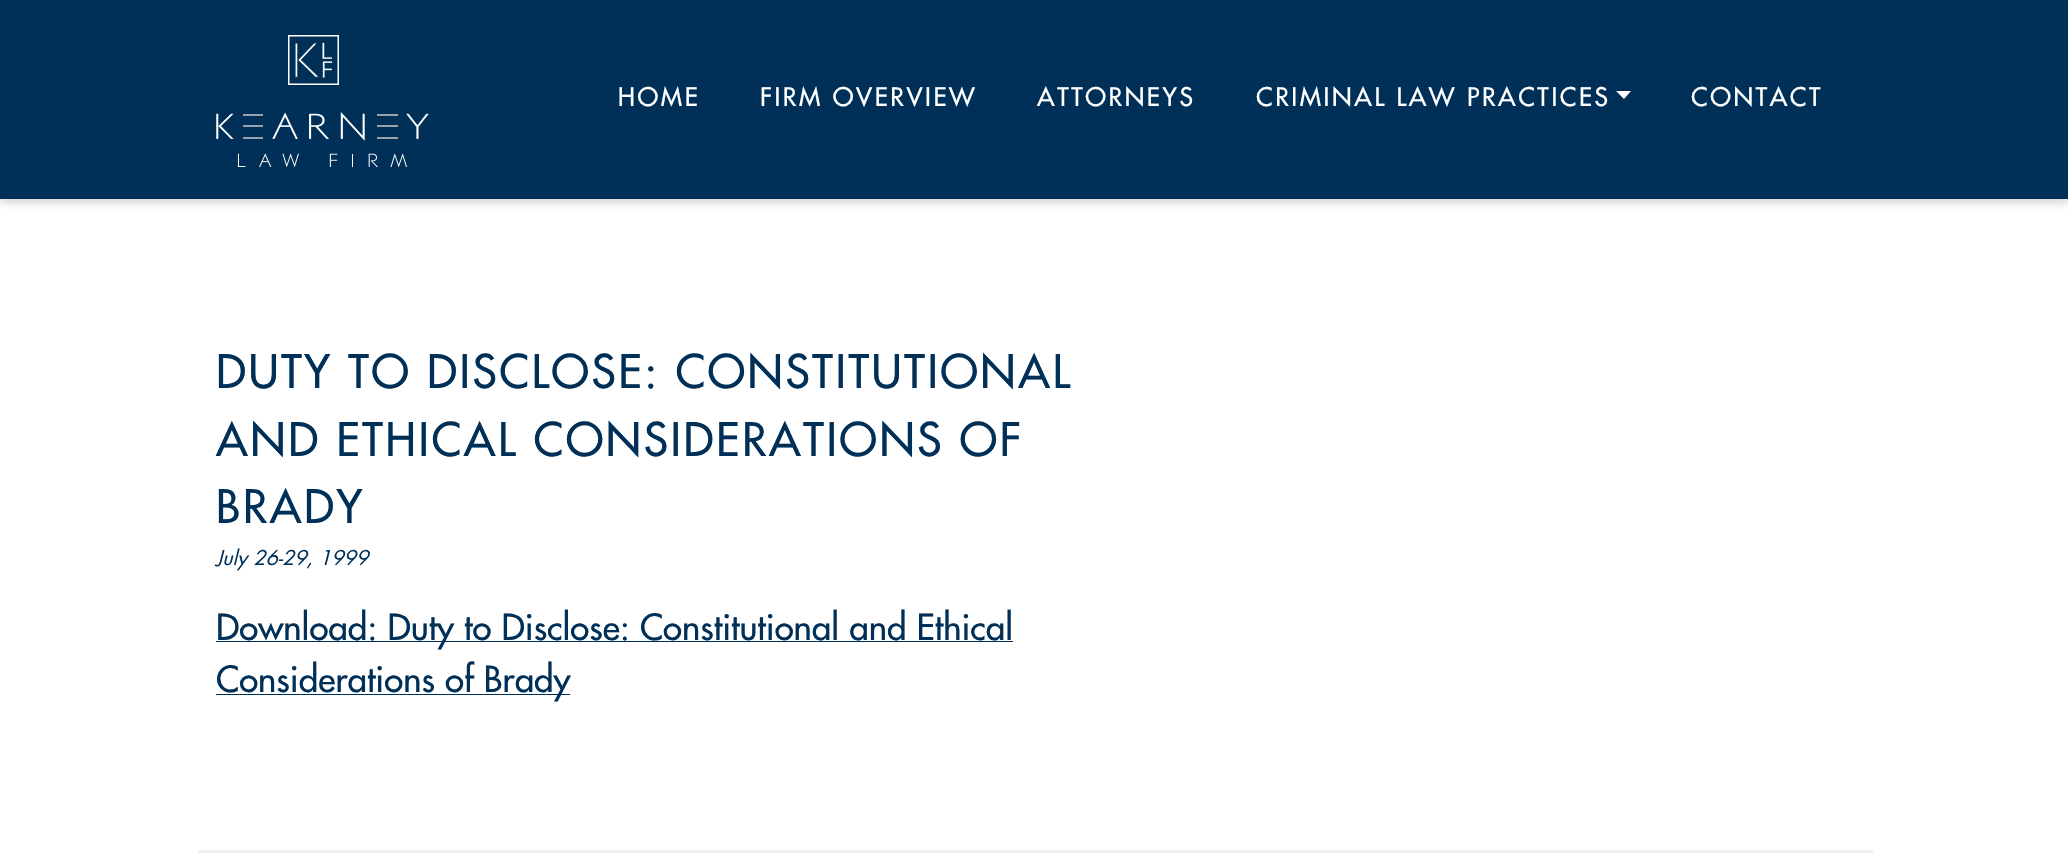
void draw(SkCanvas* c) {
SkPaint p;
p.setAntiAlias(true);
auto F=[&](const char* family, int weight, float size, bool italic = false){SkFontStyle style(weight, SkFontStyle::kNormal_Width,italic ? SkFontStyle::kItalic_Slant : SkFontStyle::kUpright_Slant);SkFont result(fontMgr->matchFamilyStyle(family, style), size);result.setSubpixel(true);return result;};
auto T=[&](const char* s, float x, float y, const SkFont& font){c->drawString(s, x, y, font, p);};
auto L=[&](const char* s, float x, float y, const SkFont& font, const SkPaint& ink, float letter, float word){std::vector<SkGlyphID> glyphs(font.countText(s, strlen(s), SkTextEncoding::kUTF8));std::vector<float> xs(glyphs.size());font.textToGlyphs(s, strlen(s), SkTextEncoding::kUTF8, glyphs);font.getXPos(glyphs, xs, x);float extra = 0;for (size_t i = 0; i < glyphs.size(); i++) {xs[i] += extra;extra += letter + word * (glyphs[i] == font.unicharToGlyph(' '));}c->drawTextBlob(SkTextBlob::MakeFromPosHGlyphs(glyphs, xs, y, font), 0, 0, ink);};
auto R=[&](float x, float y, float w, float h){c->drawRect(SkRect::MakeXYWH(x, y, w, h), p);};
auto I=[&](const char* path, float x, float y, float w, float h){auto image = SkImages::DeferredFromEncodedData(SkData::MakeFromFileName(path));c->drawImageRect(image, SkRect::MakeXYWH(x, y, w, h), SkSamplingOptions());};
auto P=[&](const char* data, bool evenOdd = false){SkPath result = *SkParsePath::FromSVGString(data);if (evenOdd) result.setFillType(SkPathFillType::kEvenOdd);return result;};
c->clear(0xffffffff);
p.setColor(0x29000000);
p.setMaskFilter(SkMaskFilter::MakeBlur(kNormal_SkBlurStyle, 4));
c->drawRect(SkRect::MakeXYWH(0,4,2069,199),p);
p.setMaskFilter(nullptr);
p.setColor(0xff003057);
R(0,0,2068,199);
I("1.png",216,35,213,133);
auto f1 = F("Futura",400,25);
p.setColor(0xffffffff);
L("HOME",618,106,f1,p,2.6,0);
L("FIRM OVERVIEW",760,106,f1,p,2.6,0);
L("ATTORNEYS",1037,106,f1,p,2.6,0);
L("CRIMINAL LAW PRACTICES",1256,106,f1,p,2.6,0);
c->drawPath(P("M1616 91h15l-7 8z"),p);
L("CONTACT",1691,106,f1,p,2.6,0);
auto f2 = F("Futura",400,45);
p.setColor(0xff003057);
L("DUTY TO DISCLOSE: CONSTITUTIONAL",216,388,f2,p,2.6,0);
L("AND ETHICAL CONSIDERATIONS OF",216,456,f2,p,2.6,0);
L("BRADY",216,523,f2,p,2.6,0);
auto f3 = F("Futura",400,20,true);
T("July 26-29, 1999",216,565,f3);
R(216,641,797,1);
auto f4 = F("Futura",400,35);
T("Download: Duty to Disclose: Constitutional and Ethical",216,640,f4);
R(216,694,354,1);
T("Considerations of Brady",216,692,f4);
p.setColor(0xffeff0f2);
R(198,850,1675,3);
}
